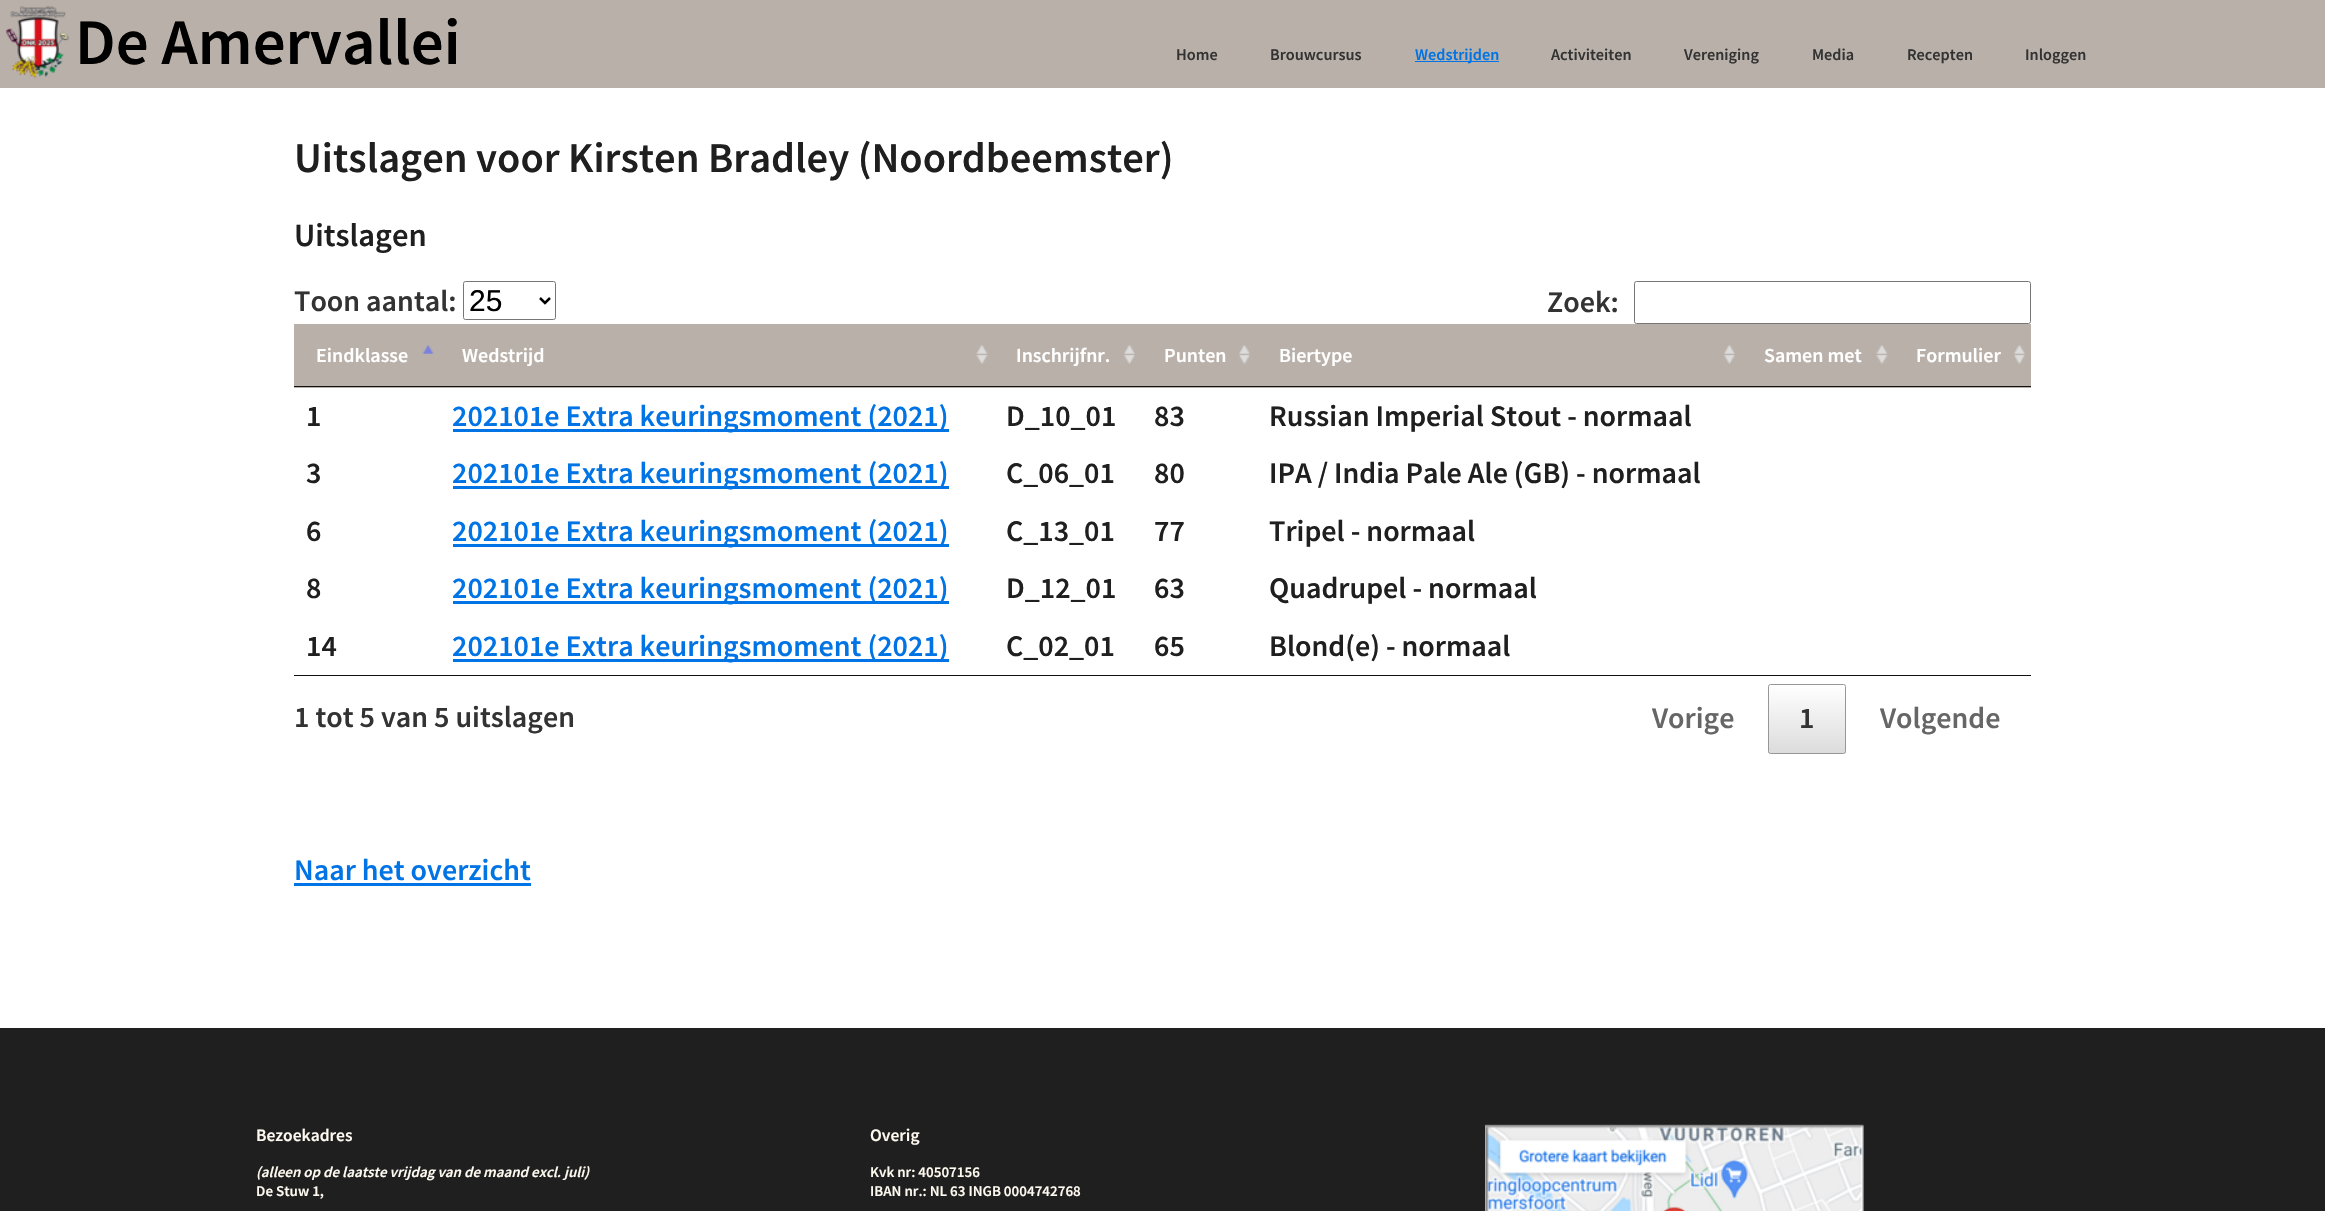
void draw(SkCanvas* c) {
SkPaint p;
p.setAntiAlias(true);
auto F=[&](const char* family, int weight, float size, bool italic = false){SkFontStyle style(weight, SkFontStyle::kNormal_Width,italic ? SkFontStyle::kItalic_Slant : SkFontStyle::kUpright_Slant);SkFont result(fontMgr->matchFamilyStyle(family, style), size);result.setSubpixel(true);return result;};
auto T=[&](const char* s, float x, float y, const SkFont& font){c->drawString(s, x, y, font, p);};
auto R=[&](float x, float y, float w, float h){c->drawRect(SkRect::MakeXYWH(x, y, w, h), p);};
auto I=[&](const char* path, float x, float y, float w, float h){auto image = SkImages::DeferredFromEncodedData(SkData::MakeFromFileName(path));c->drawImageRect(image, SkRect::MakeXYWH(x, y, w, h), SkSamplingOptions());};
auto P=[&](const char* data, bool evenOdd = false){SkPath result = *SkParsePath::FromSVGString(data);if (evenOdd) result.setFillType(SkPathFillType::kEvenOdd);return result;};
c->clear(0xffffffff);
p.setColor(0xffb9b1a9);
R(0,0,2325,88);
I("1.png",6,6,63,72);
auto f1 = F("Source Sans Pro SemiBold",600,65);
p.setColor(0xff000000);
T("De Amervallei",75,64,f1);
auto f2 = F("Source Sans Pro SemiBold",600,16.25);
p.setColor(0xff333333);
T("Home",1176,60,f2);
T("Brouwcursus",1270,60,f2);
p.setColor(0xff0073e5);
R(1415,61,84,1);
T("Wedstrijden",1415,60,f2);
p.setColor(0xff333333);
T("Activiteiten",1551,60,f2);
T("Vereniging",1684,60,f2);
T("Media",1812,60,f2);
T("Recepten",1907,60,f2);
T("Inloggen",2025,60,f2);
auto f3 = F("Source Sans Pro SemiBold",600,42.5);
p.setColor(0xff1f1f1f);
T("Uitslagen voor Kirsten Bradley (Noordbeemster)",294,172,f3);
auto f4 = F("Source Sans Pro SemiBold",600,32.5);
T("Uitslagen",294,246,f4);
auto f5 = F("Source Sans Pro SemiBold",600,30);
p.setColor(0xff333333);
T("Toon aantal:",294,311,f5);
p.setStroke(true);
p.setStrokeWidth(1);
p.setColor(0xff767676);
c->drawRoundRect(SkRect::MakeXYWH(463.5,281.5,92,38),2,2,p);
p.setStrokeWidth(2.5);
p.setColor(0xff000000);
c->drawPath(P("M540 298l5 5l5-5"),p);
auto f6 = F("Liberation Sans",400,30);
p.setStroke(false);
T("25",469,311,f6);
p.setColor(0xff333333);
T("Zoek:",1547,312,f5);
p.setStroke(true);
p.setStrokeWidth(1);
p.setColor(0xff767676);
c->drawRoundRect(SkRect::MakeXYWH(1634.5,281.5,396,42),2,2,p);
p.setStroke(false);
p.setColor(0xff111111);
R(294,675,1737,1);
p.setColor(0xffb9b1a9);
R(294,324,1737,64);
I("2.png",422,345,12,9);
p.setColor(0xff111111);
R(294,386,1737,1);
auto f7 = F("Source Sans Pro SemiBold",600,20);
p.setColor(0xffffffff);
T("Eindklasse",316,362,f7);
I("3.png",976,345,12,19);
T("Wedstrijd",462,362,f7);
I("4.png",1124,345,11,19);
T("Inschrijfnr.",1016,362,f7);
I("5.png",1239,345,11,19);
T("Punten",1164,362,f7);
I("5.png",1724,345,11,19);
T("Biertype",1279,362,f7);
I("6.png",1876,345,12,19);
T("Samen met",1764,362,f7);
I("5.png",2014,345,11,19);
T("Formulier",1916,362,f7);
p.setColor(0xff1f1f1f);
T("1",306,426,f5);
p.setColor(0xff0073e5);
R(453,429,496,3);
T("202101e Extra keuringsmoment (2021)",452,426,f5);
p.setColor(0xff1f1f1f);
T("D_10_01",1006,426,f5);
T("83",1154,426,f5);
T("Russian Imperial Stout - normaal",1269,426,f5);
T("3",306,483,f5);
p.setColor(0xff0073e5);
R(453,486,496,3);
T("202101e Extra keuringsmoment (2021)",452,483,f5);
p.setColor(0xff1f1f1f);
T("C_06_01",1006,483,f5);
T("80",1154,483,f5);
T("IPA / India Pale Ale (GB) - normaal",1269,483,f5);
T("6",306,541,f5);
p.setColor(0xff0073e5);
R(453,544,496,3);
T("202101e Extra keuringsmoment (2021)",452,541,f5);
p.setColor(0xff1f1f1f);
T("C_13_01",1006,541,f5);
T("77",1154,541,f5);
T("Tripel - normaal",1269,541,f5);
T("8",306,598,f5);
p.setColor(0xff0073e5);
R(453,601,496,3);
T("202101e Extra keuringsmoment (2021)",452,598,f5);
p.setColor(0xff1f1f1f);
T("D_12_01",1006,598,f5);
T("63",1154,598,f5);
T("Quadrupel - normaal",1269,598,f5);
T("14",306,656,f5);
p.setColor(0xff0073e5);
R(453,659,496,3);
T("202101e Extra keuringsmoment (2021)",452,656,f5);
p.setColor(0xff1f1f1f);
T("C_02_01",1006,656,f5);
T("65",1154,656,f5);
T("Blond(e) - normaal",1269,656,f5);
p.setColor(0xff333333);
T("1 tot 5 van 5 uitslagen",294,727,f5);
p.setColor(0xff666666);
T("Vorige",1652,728,f5);
c->save();
c->clipPath(P("M1770.5 684h73c1.5 0 2.5 1 2.5 2.5v65c0 1.5-1 2.5-2.5 2.5h-73c-1.5 0-2.5-1-2.5-2.5v-65c0-1.5 1-2.5 2.5-2.5z"),true);
{
const SkColor colors[] = {0xffffffff,0xffdcdcdc};
const float stops[] = {0,1};
const SkPoint ends[] = {{1807,685}, {1807,753}};
p.setShader(SkGradientShader::MakeLinear(ends, colors, stops, 2, SkTileMode::kClamp));
p.setAlpha(255);
}
R(1768,685,78,68);
c->restore();
p.setStroke(true);
p.setShader(nullptr);
p.setColor(0xff979797);
c->drawRoundRect(SkRect::MakeXYWH(1768.5,684.5,77,69),2,2,p);
p.setStroke(false);
p.setColor(0xff333333);
T("1",1799,728,f5);
p.setColor(0xff666666);
T("Volgende",1880,728,f5);
p.setColor(0xff0073e5);
T("Naar het overzicht",294,880,f5);
R(294,883,237,3);
p.setColor(0xff1f1f1f);
R(0,1028,2325,183);
auto f8 = F("Source Sans Pro SemiBold",600,17.5);
p.setColor(0xfffffaf0);
T("Bezoekadres",256,1141,f8);
auto f9 = F("Source Sans Pro SemiBold",600,15,true);
T("(alleen op de laatste vrijdag van de maand excl. juli)",256,1177,f9);
auto f10 = F("Source Sans Pro SemiBold",600,15);
T("De Stuw 1,",256,1196,f10);
T("Overig",870,1141,f8);
T("Kvk nr: 40507156",870,1177,f10);
T("IBAN nr.: NL 63 INGB 0004742768",870,1196,f10);
I("7.png",1485,1124,379,87);
}
